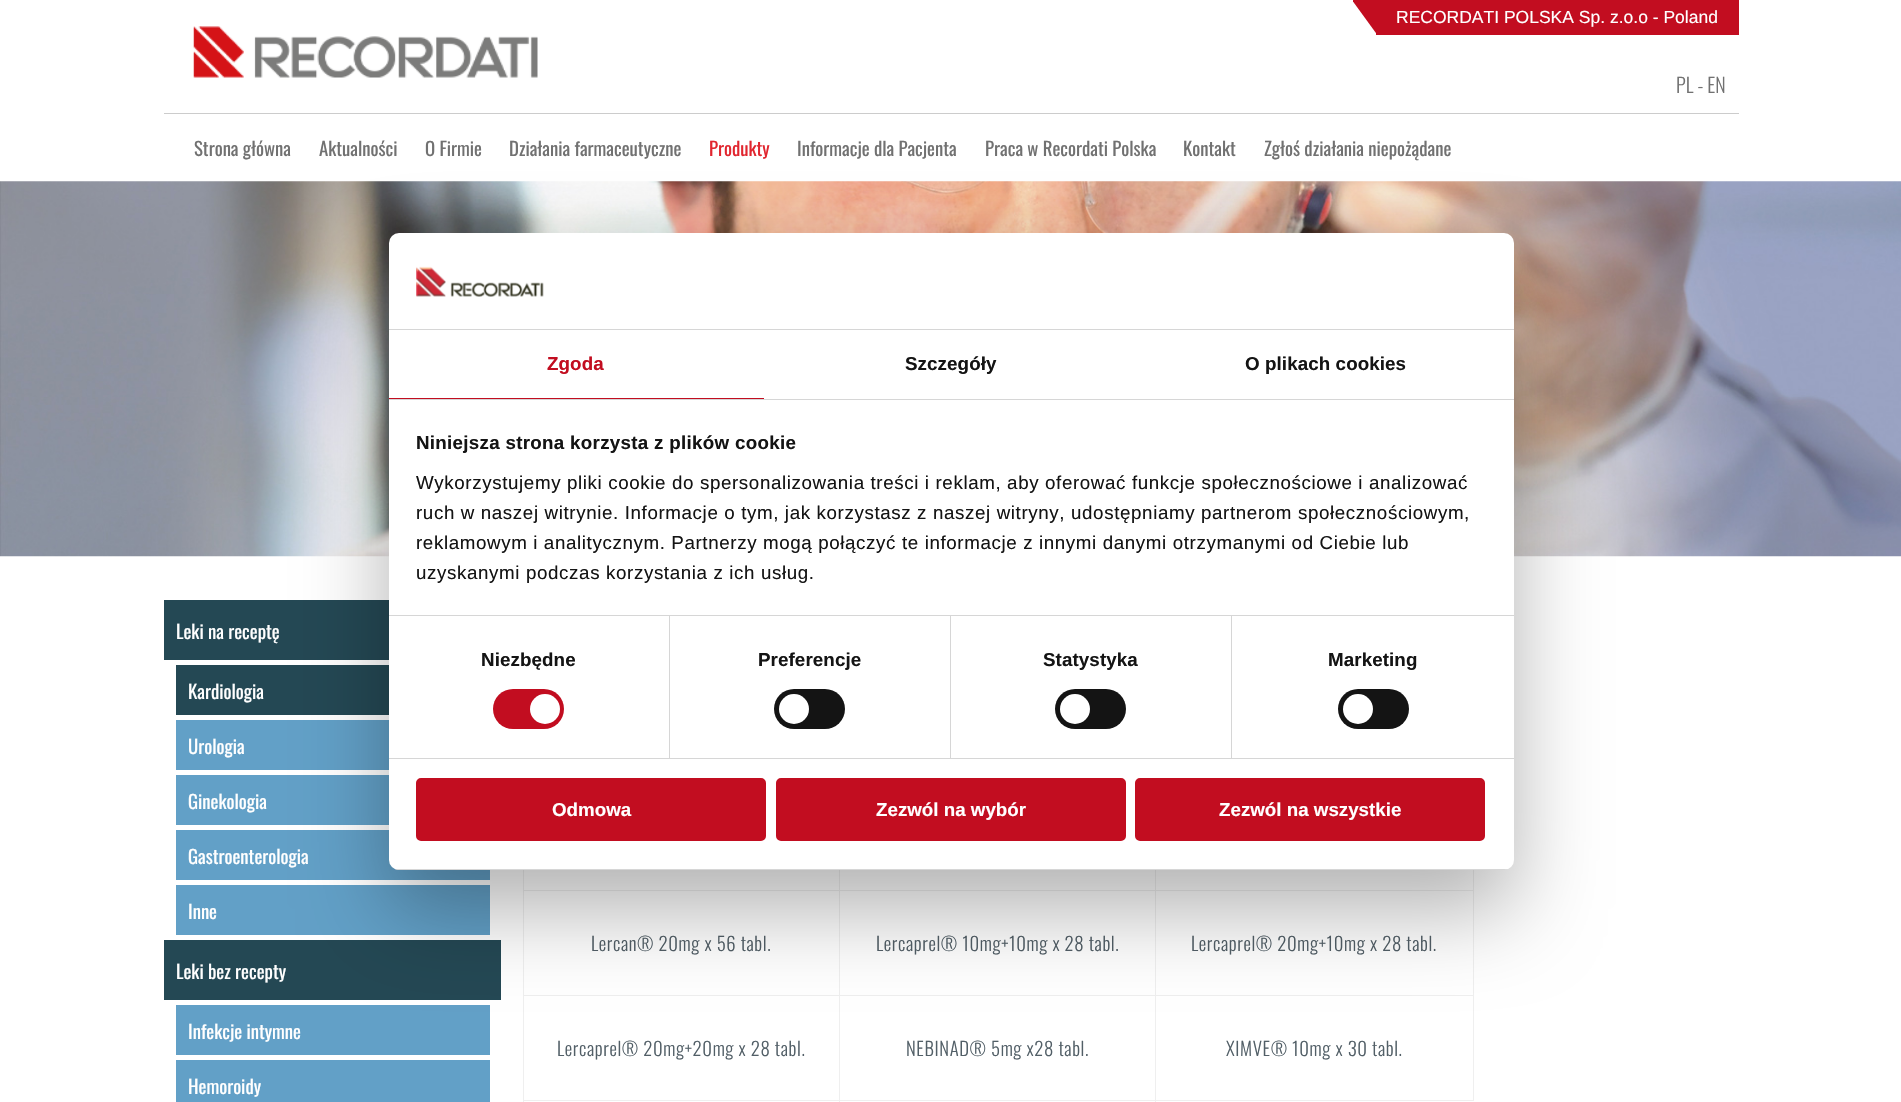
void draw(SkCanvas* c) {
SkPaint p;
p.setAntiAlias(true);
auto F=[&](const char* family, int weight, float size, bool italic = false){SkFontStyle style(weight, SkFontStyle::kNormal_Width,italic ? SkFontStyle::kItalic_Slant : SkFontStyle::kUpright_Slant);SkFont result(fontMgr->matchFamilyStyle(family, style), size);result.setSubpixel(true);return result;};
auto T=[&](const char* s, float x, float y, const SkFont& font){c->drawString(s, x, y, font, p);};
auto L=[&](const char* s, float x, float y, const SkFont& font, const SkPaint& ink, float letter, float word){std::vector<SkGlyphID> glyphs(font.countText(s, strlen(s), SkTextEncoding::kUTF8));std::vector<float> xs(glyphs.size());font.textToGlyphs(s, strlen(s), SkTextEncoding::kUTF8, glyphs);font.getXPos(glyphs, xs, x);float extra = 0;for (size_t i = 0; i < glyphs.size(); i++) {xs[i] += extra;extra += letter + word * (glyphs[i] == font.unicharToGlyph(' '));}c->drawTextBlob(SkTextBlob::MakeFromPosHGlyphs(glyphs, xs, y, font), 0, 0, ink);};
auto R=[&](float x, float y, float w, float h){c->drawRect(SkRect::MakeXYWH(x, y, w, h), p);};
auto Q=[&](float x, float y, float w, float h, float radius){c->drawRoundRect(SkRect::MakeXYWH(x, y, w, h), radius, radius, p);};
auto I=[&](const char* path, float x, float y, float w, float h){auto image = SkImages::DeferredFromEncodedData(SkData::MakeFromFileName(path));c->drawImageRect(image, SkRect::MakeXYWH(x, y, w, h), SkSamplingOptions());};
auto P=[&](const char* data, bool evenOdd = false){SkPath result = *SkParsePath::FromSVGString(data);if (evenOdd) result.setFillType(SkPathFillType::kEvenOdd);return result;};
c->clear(0xffffffff);
p.setColor(0xffc20d20);
c->drawPath(P("M1353 0v1.5l24 33v-34.5z"),p);
R(1376,0,363,35);
auto f1 = F("Liberation Sans",400,17.5);
p.setColor(0xffffffff);
T("RECORDATI POLSKA Sp. z.o.o - Poland",1396,23,f1);
I("1.png",193,26,345,52);
auto f2 = F("Oswald",300,20);
p.setColor(0xff717171);
T("PL - EN",1676,93,f2);
p.setColor(0xffcccccc);
R(164,113,1575,1);
auto f3 = F("Oswald",400,18.75);
p.setColor(0xff717171);
T("Strona główna",194,156,f3);
T("Aktualności",319,156,f3);
T("O Firmie",425,156,f3);
T("Działania farmaceutyczne",509,156,f3);
p.setColor(0xffe1262f);
T("Produkty",709,156,f3);
p.setColor(0xff717171);
T("Informacje dla Pacjenta",797,156,f3);
T("Praca w Recordati Polska",985,156,f3);
T("Kontakt",1183,156,f3);
T("Zgłoś działania niepożądane",1264,156,f3);
I("2.png",0,181,1901,376);
p.setColor(0xff244854);
R(164,600,225,60);
p.setColor(0xffffffff);
T("Leki na receptę",176,639,f3);
p.setColor(0xff244854);
R(176,665,213,50);
p.setColor(0xffffffff);
T("Kardiologia",188,699,f3);
p.setColor(0xff62a0c7);
R(176,720,213,50);
p.setColor(0xffffffff);
T("Urologia",188,754,f3);
p.setColor(0xff62a0c7);
R(176,775,213,50);
p.setColor(0xffffffff);
T("Ginekologia",188,809,f3);
p.setColor(0xff62a0c7);
R(176,830,314,50);
p.setColor(0xffffffff);
T("Gastroenterologia",188,864,f3);
p.setColor(0xff62a0c7);
R(176,885,314,50);
p.setColor(0xffffffff);
T("Inne",188,919,f3);
p.setColor(0xff244854);
R(164,940,337,60);
p.setColor(0xffffffff);
T("Leki bez recepty",176,979,f3);
p.setColor(0xff62a0c7);
R(176,1005,314,50);
p.setColor(0xffffffff);
T("Infekcje intymne",188,1039,f3);
p.setColor(0xff62a0c7);
R(176,1060,314,42);
p.setColor(0xffffffff);
T("Hemoroidy",188,1094,f3);
p.setColor(0xffefefef);
R(1155,890,319,1);
R(1155,995,319,1);
R(1473,995,1,106);
R(839,1100,317,1);
R(1155,1100,1,2);
R(1155,1100,319,1);
R(1155,995,1,106);
R(839,995,317,1);
R(1155,890,1,106);
R(839,890,317,1);
R(839,1100,1,2);
R(523,1100,317,1);
R(839,995,1,106);
R(523,995,317,1);
R(839,890,1,106);
R(523,890,317,1);
R(839,870,1,21);
R(1155,870,1,21);
R(523,1100,1,2);
R(523,995,1,106);
R(523,870,1,126);
auto f4 = F("Oswald",300,18.75);
p.setColor(0xff525f67);
L("Lercan® 20mg x 56 tabl.",591,951,f4,p,.62,0);
L("Lercaprel® 10mg+10mg x 28 tabl.",876,951,f4,p,.62,0);
p.setColor(0xffefefef);
R(1473,870,1,126);
p.setColor(0xff525f67);
L("Lercaprel® 20mg+10mg x 28 tabl.",1191,951,f4,p,.62,0);
L("Lercaprel® 20mg+20mg x 28 tabl.",557,1056,f4,p,.62,0);
L("NEBINAD® 5mg x28 tabl.",906,1056,f4,p,.62,0);
L("XIMVE® 10mg x 30 tabl.",1226,1056,f4,p,.62,0);
p.setColor(0x4d000000);
p.setMaskFilter(SkMaskFilter::MakeBlur(kNormal_SkBlurStyle, 42.5));
c->drawRoundRect(SkRect::MakeXYWH(389,273,1125,637),10,10,p);
p.setMaskFilter(nullptr);
p.setColor(0xffffffff);
Q(389,233,1125,637,10);
p.setColor(0xffd6d6d6);
R(389,329,1125,1);
I("3.png",416,266,128,31);
R(389,399,1125,1);
p.setColor(0xffc20d20);
R(389,398,375,1);
auto f5 = F("Liberation Sans",700,18.75);
L("Zgoda",547,370,f5,p,.1,0);
p.setColor(0xff141414);
L("Szczegóły",905,370,f5,p,.1,0);
L("O plikach cookies",1245,370,f5,p,.1,0);
p.setColor(0xffd6d6d6);
R(389,615,1125,1);
p.setColor(0xff141414);
L("Niniejsza strona korzysta z plików cookie",416,449,f5,p,.3,0);
auto f6 = F("Liberation Sans",400,18.75);
L("Wykorzystujemy pliki cookie do spersonalizowania treści i reklam, aby oferować funkcje społecznościowe i analizować",416,489,f6,p,.62,0);
L("ruch w naszej witrynie. Informacje o tym, jak korzystasz z naszej witryny, udostępniamy partnerom społecznościowym,",416,519,f6,p,.62,0);
L("reklamowym i analitycznym. Partnerzy mogą połączyć te informacje z innymi danymi otrzymanymi od Ciebie lub",416,549,f6,p,.62,0);
L("uzyskanymi podczas korzystania z ich usług.",416,579,f6,p,.62,0);
p.setColor(0xffd6d6d6);
R(389,758,1125,1);
R(669,616,1,142);
p.setColor(0xff141414);
L("Niezbędne",481,666,f5,p,.1,0);
p.setColor(0xffc20d20);
Q(493,689,71,40,20);
p.setColor(0xffffffff);
c->drawCircle(545,709,15,p);
p.setColor(0xffd6d6d6);
R(950,616,1,142);
p.setColor(0xff141414);
L("Preferencje",758,666,f5,p,.1,0);
Q(774,689,71,40,20);
p.setColor(0xffffffff);
c->drawCircle(794,709,15,p);
p.setColor(0xffd6d6d6);
R(1231,616,1,142);
p.setColor(0xff141414);
L("Statystyka",1043,666,f5,p,.1,0);
Q(1055,689,71,40,20);
p.setColor(0xffffffff);
c->drawCircle(1075,709,15,p);
p.setColor(0xff141414);
L("Marketing",1328,666,f5,p,.1,0);
Q(1338,689,71,40,20);
p.setColor(0xffffffff);
c->drawCircle(1358,709,15,p);
c->save();
c->clipPath(P("M399 233h1105c5.5 0 10 4.5 10 10v617c0 5.5-4.5 10-10 10h-1105c-5.5 0-10-4.5-10-10v-617c0-5.5 4.5-10 10-10z"),true);
p.setColor(0xffd6d6d6);
R(389,869,1125,1);
c->restore();
p.setColor(0xffc20d20);
c->drawRoundRect(SkRect::MakeXYWH(417.5,779.5,347,60),3.5,3.5,p);
p.setStroke(true);
p.setStrokeWidth(3);
c->drawRoundRect(SkRect::MakeXYWH(417.5,779.5,347,60),3.5,3.5,p);
p.setStroke(false);
p.setColor(0xffffffff);
T("Odmowa",552,816,f5);
p.setColor(0xffc20d20);
c->drawRoundRect(SkRect::MakeXYWH(777.5,779.5,347,60),3.5,3.5,p);
p.setStroke(true);
c->drawRoundRect(SkRect::MakeXYWH(777.5,779.5,347,60),3.5,3.5,p);
p.setStroke(false);
p.setColor(0xffffffff);
T("Zezwól na wybór",876,816,f5);
p.setColor(0xffc20d20);
c->drawRoundRect(SkRect::MakeXYWH(1136.5,779.5,347,60),3.5,3.5,p);
p.setStroke(true);
c->drawRoundRect(SkRect::MakeXYWH(1136.5,779.5,347,60),3.5,3.5,p);
p.setStroke(false);
p.setColor(0xffffffff);
T("Zezwól na wszystkie",1219,816,f5);
}
